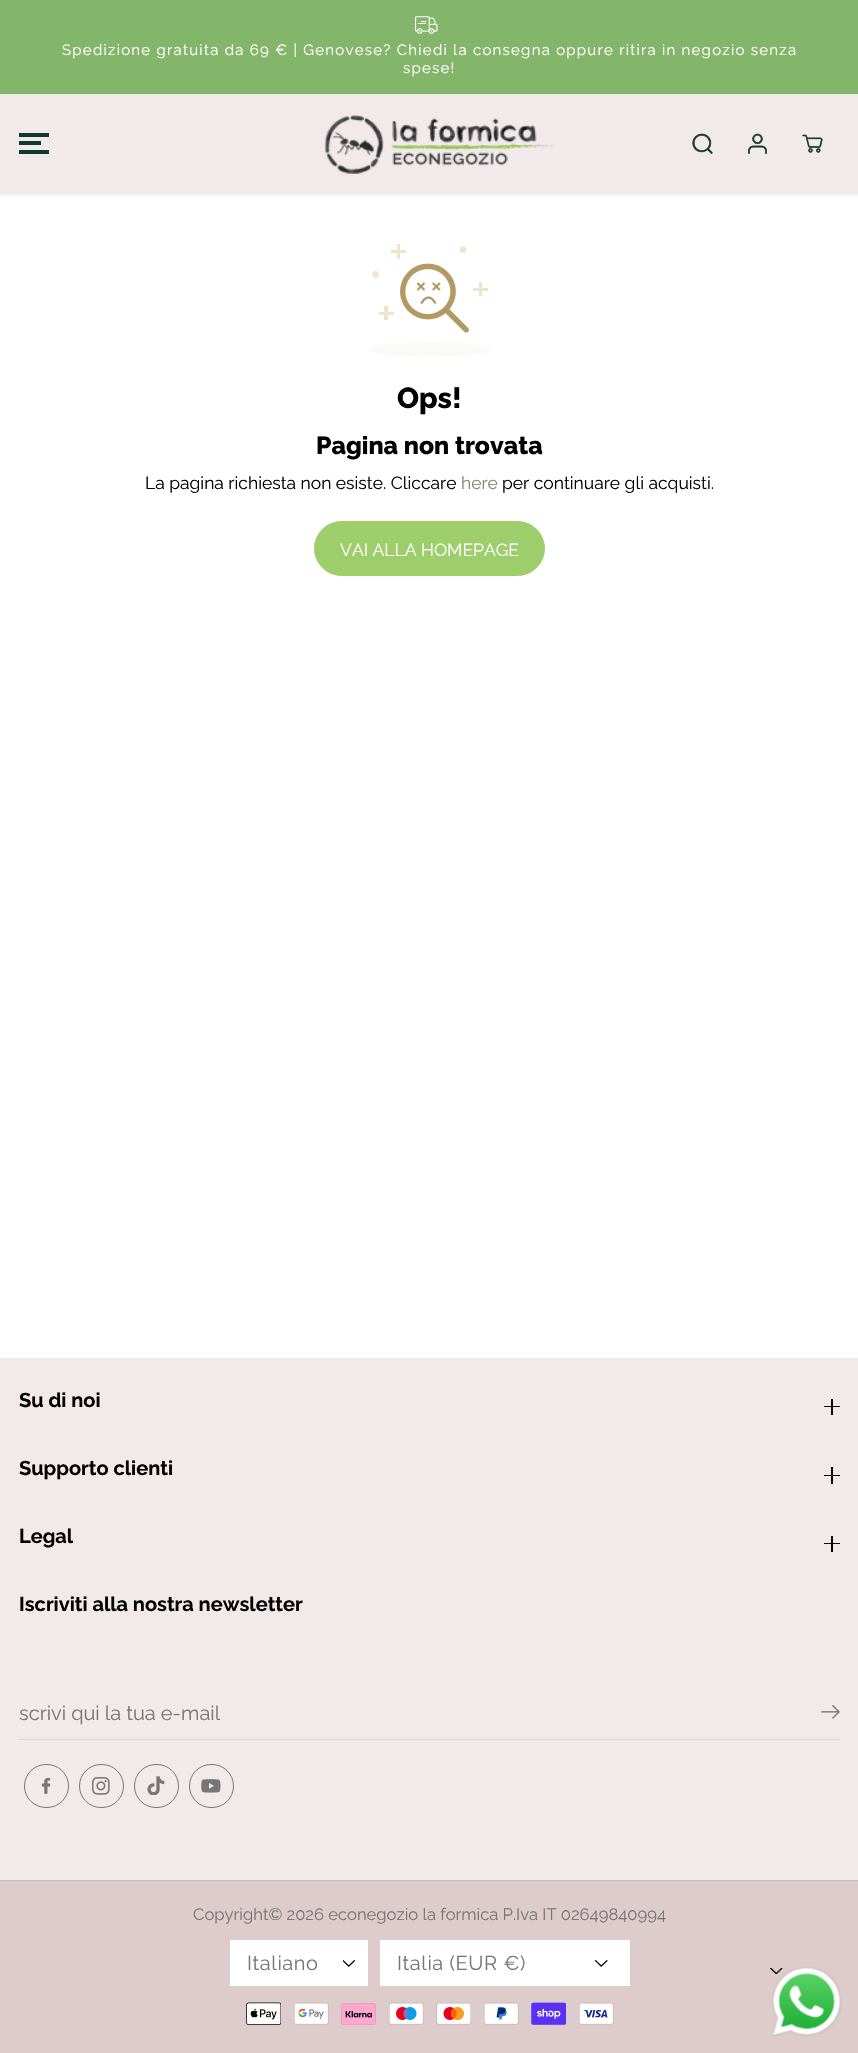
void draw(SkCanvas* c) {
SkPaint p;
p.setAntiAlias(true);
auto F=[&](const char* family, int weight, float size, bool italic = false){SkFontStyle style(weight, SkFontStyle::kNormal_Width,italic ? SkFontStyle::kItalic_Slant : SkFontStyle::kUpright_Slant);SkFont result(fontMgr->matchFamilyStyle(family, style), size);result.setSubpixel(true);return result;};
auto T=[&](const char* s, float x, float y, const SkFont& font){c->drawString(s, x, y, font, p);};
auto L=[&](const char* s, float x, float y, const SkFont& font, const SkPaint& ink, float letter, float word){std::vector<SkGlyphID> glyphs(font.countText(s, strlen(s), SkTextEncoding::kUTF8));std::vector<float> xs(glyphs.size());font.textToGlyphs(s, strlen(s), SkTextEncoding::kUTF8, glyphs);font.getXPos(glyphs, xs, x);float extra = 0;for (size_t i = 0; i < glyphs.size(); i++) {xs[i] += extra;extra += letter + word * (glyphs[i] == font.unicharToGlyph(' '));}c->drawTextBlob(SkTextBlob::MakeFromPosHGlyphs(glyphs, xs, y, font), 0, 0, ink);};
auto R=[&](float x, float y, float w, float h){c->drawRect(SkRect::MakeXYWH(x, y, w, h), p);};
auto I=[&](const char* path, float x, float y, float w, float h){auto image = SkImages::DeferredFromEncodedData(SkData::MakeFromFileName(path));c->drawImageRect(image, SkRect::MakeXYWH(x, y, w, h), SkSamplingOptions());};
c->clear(0xffffffff);
p.setColor(0xff83b56b);
R(0,0,858,94);
I("1.png",415,16,23,18);
auto f1 = F("Raleway",400,15);
p.setColor(0xffffffff);
L("Spedizione gratuita da 69 € | Genovese? Chiedi la consegna oppure ritira in negozio senza",62,55,f1,p,1.25,0);
L("spese!",403,73,f1,p,1.25,0);
p.setColor(0xfff2eaea);
R(0,94,858,100);
c->save();
c->clipRect(SkRect::MakeXYWH(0,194,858,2));
p.setColor(0x0d000000);
p.setMaskFilter(SkMaskFilter::MakeBlur(kNormal_SkBlurStyle, 1));
c->drawRect(SkRect::MakeXYWH(0,96,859,100),p);
p.setMaskFilter(nullptr);
c->restore();
p.setColor(0xff0e3a2d);
R(19,141,22,4);
R(19,133,30,4);
R(19,150,30,4);
I("2.png",324,115,230,60);
I("3.png",692,133,21,21);
I("4.png",748,133,19,21);
I("5.png",802,134,21,19);
I("6.png",368,244,124,113);
auto f2 = F("Raleway",800,29);
p.setColor(0xff000000);
T("Ops!",397,408,f2);
auto f3 = F("Raleway",800,24.75);
T("Pagina non trovata",316,454,f3);
auto f4 = F("Raleway",400,17.5);
T("La pagina richiesta non esiste. Cliccare",145,489,f4);
p.setColor(0xff8d8473);
T("here",461,489,f4);
p.setColor(0xff000000);
T("per continuare gli acquisti.",502,489,f4);
p.setColor(0xff9ece6c);
c->drawRoundRect(SkRect::MakeXYWH(314.5,521.5,230,54),27,27,p);
p.setStroke(true);
p.setStrokeWidth(1);
c->drawRoundRect(SkRect::MakeXYWH(314.5,521.5,230,54),27,27,p);
p.setStroke(false);
p.setColor(0xffffffff);
T("VAI ALLA HOMEPAGE",340,556,f4);
p.setColor(0xfff2eaea);
R(0,1358,858,522);
auto f5 = F("Raleway",700,20);
p.setColor(0xff000000);
T("Su di noi",19,1407,f5);
R(831,1399,2,16);
R(824,1406,16,1);
T("Supporto clienti",19,1475,f5);
R(831,1467,2,17);
R(824,1475,16,1);
T("Legal",19,1543,f5);
R(831,1536,2,16);
R(824,1543,16,1);
T("Iscriviti alla nostra newsletter",19,1611,f5);
p.setColor(0xffd9d3d3);
R(19,1739,821,1);
auto f6 = F("Raleway",400,20);
p.setColor(0xff767676);
T("scrivi qui la tua e-mail",19,1720,f6);
I("7.png",821,1705,19,14);
I("8.png",41,1777,10,17);
p.setStroke(true);
c->drawRoundRect(SkRect::MakeXYWH(24.5,1764.5,44,43),21.5,21.5,p);
I("9.png",92,1777,18,18);
c->drawRoundRect(SkRect::MakeXYWH(79.5,1764.5,44,43),21.5,21.5,p);
I("10.png",147,1776,18,19);
c->drawRoundRect(SkRect::MakeXYWH(134.5,1764.5,44,43),21.5,21.5,p);
I("11.png",201,1779,20,14);
c->drawRoundRect(SkRect::MakeXYWH(189.5,1764.5,44,43),21.5,21.5,p);
p.setStroke(false);
p.setColor(0xffdecbcb);
R(0,1881,858,172);
I("12.png",770,1968,13,6);
p.setColor(0xffc9baba);
R(0,1880,858,1);
auto f7 = F("Raleway",400,16.6);
p.setColor(0xff767676);
T("Copyright© 2026 econegozio la formica P.Iva IT 02649840994",193,1920,f7);
p.setColor(0xffffffff);
R(230,1940,138,46);
I("13.png",343,1960,12,7);
p.setColor(0xff767676);
L("Italiano",247,1970,f6,p,.6,0);
p.setColor(0xffffffff);
R(380,1940,250,46);
I("14.png",595,1960,13,7);
p.setColor(0xff767676);
L("Italia (EUR €)",397,1970,f6,p,.6,0);
I("15.png",246,2002,35,23);
I("16.png",294,2002,35,23);
I("17.png",341,2003,35,22);
I("18.png",389,2002,35,23);
I("19.png",436,2002,35,23);
I("20.png",484,2002,35,23);
I("21.png",531,2002,35,23);
I("22.png",579,2002,35,23);
I("23.png",772,1966,70,71);
}
